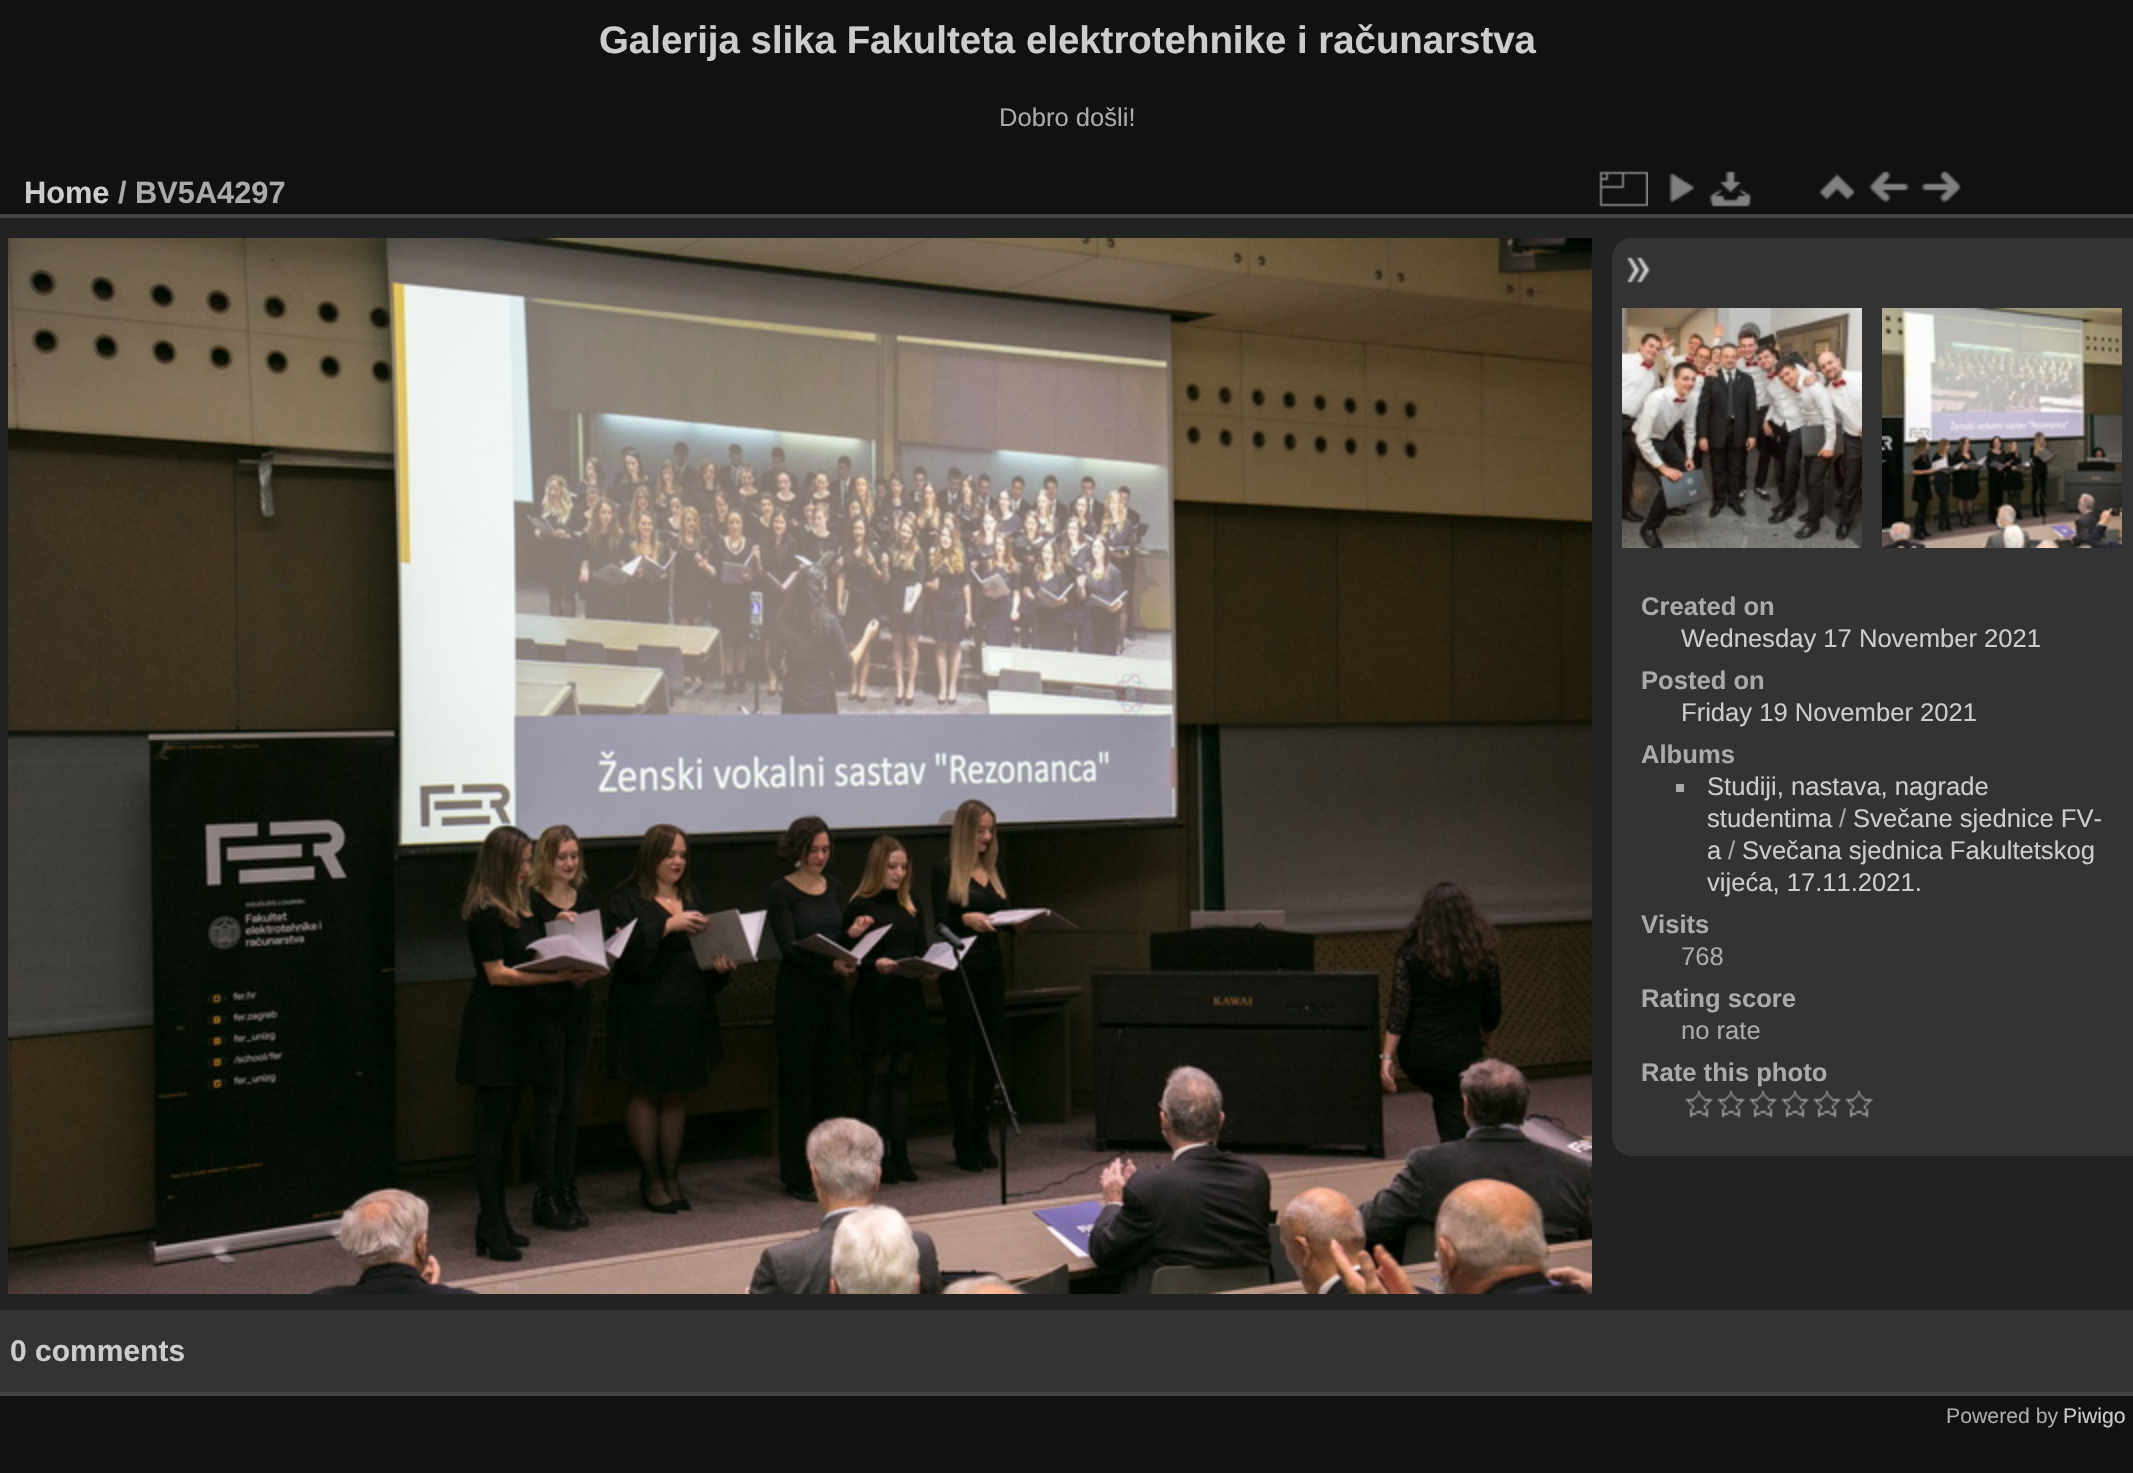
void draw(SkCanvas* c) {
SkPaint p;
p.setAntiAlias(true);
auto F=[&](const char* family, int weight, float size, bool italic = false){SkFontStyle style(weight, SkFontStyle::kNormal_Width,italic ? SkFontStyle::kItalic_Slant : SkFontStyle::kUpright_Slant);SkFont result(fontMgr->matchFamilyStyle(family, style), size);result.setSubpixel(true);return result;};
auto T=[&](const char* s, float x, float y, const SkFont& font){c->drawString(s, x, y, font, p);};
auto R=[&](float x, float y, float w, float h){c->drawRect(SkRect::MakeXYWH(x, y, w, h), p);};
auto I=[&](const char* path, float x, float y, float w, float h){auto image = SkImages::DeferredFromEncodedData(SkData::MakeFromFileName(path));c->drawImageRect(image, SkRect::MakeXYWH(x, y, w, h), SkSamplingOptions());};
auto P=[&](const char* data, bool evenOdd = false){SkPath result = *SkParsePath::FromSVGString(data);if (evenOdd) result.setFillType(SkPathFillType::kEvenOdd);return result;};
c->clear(0xff111111);
auto f1 = F("Liberation Sans",700,38.4);
p.setColor(0xffcccccc);
T("Galerija slika Fakulteta elektrotehnike i računarstva",599,53,f1);
auto f2 = F("Liberation Sans",400,25.6);
p.setColor(0xffaaaaaa);
T("Dobro došli!",999,126,f2);
p.setColor(0xff222222);
R(0,218,2133,1092);
p.setColor(0xff444444);
R(0,1392,2133,4);
R(0,214,2133,4);
auto f3 = F("Liberation Sans",700,30.75);
p.setColor(0xffcccccc);
T("Home",24,203,f3);
p.setColor(0xffaaaaaa);
T("/ BV5A4297",118,203,f3);
I("1.png",1599,171,49,36);
I("2.png",1669,173,26,30);
I("3.png",1709,171,43,36);
I("4.png",1819,173,36,28);
I("5.png",1869,171,40,32);
I("6.png",1921,171,40,32);
I("7.png",8,238,1584,1056);
p.setColor(0xff333333);
c->drawPath(P("M1632 238h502v918h-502c-11 0-20-9-20-20v-878c0-11 9-20 20-20z"),p);
I("8.png",1627,257,24,26);
I("9.png",1622,308,240,240);
I("10.png",1882,308,240,240);
auto f4 = F("Liberation Sans",700,25.6);
p.setColor(0xffaaaaaa);
T("Created on",1641,615,f4);
p.setColor(0xffcccccc);
T("Wednesday 17 November 2021",1681,647,f2);
p.setColor(0xffaaaaaa);
T("Posted on",1641,689,f4);
p.setColor(0xffcccccc);
T("Friday 19 November 2021",1681,721,f2);
p.setColor(0xffaaaaaa);
T("Albums",1641,763,f4);
R(1676,784,8,8);
p.setColor(0xffcccccc);
T("Studiji, nastava, nagrade",1707,795,f2);
T("studentima",1707,827,f2);
p.setColor(0xffaaaaaa);
T("/",1839,827,f2);
p.setColor(0xffcccccc);
T("Svečane sjednice FV-",1853,827,f2);
T("a",1707,859,f2);
p.setColor(0xffaaaaaa);
T("/",1728,859,f2);
p.setColor(0xffcccccc);
T("Svečana sjednica Fakultetskog",1742,859,f2);
T("vijeća, 17.11.2021.",1707,891,f2);
p.setColor(0xffaaaaaa);
T("Visits",1641,933,f4);
T("768",1681,965,f2);
T("Rating score",1641,1007,f4);
T("no rate",1681,1039,f2);
T("Rate this photo",1641,1081,f4);
I("11.png",1685,1090,28,28);
I("11.png",1717,1090,28,28);
I("11.png",1749,1090,28,28);
I("11.png",1781,1090,28,28);
I("11.png",1813,1090,28,28);
I("11.png",1845,1090,28,28);
p.setColor(0xff333333);
R(0,1310,2133,82);
auto f5 = F("Liberation Sans",700,30);
p.setColor(0xffcccccc);
T("0 comments",10,1361,f5);
auto f6 = F("Liberation Sans",400,21.25);
p.setColor(0xffaaaaaa);
T("Powered by",1946,1423,f6);
p.setColor(0xffcccccc);
T("Piwigo",2063,1423,f6);
}
